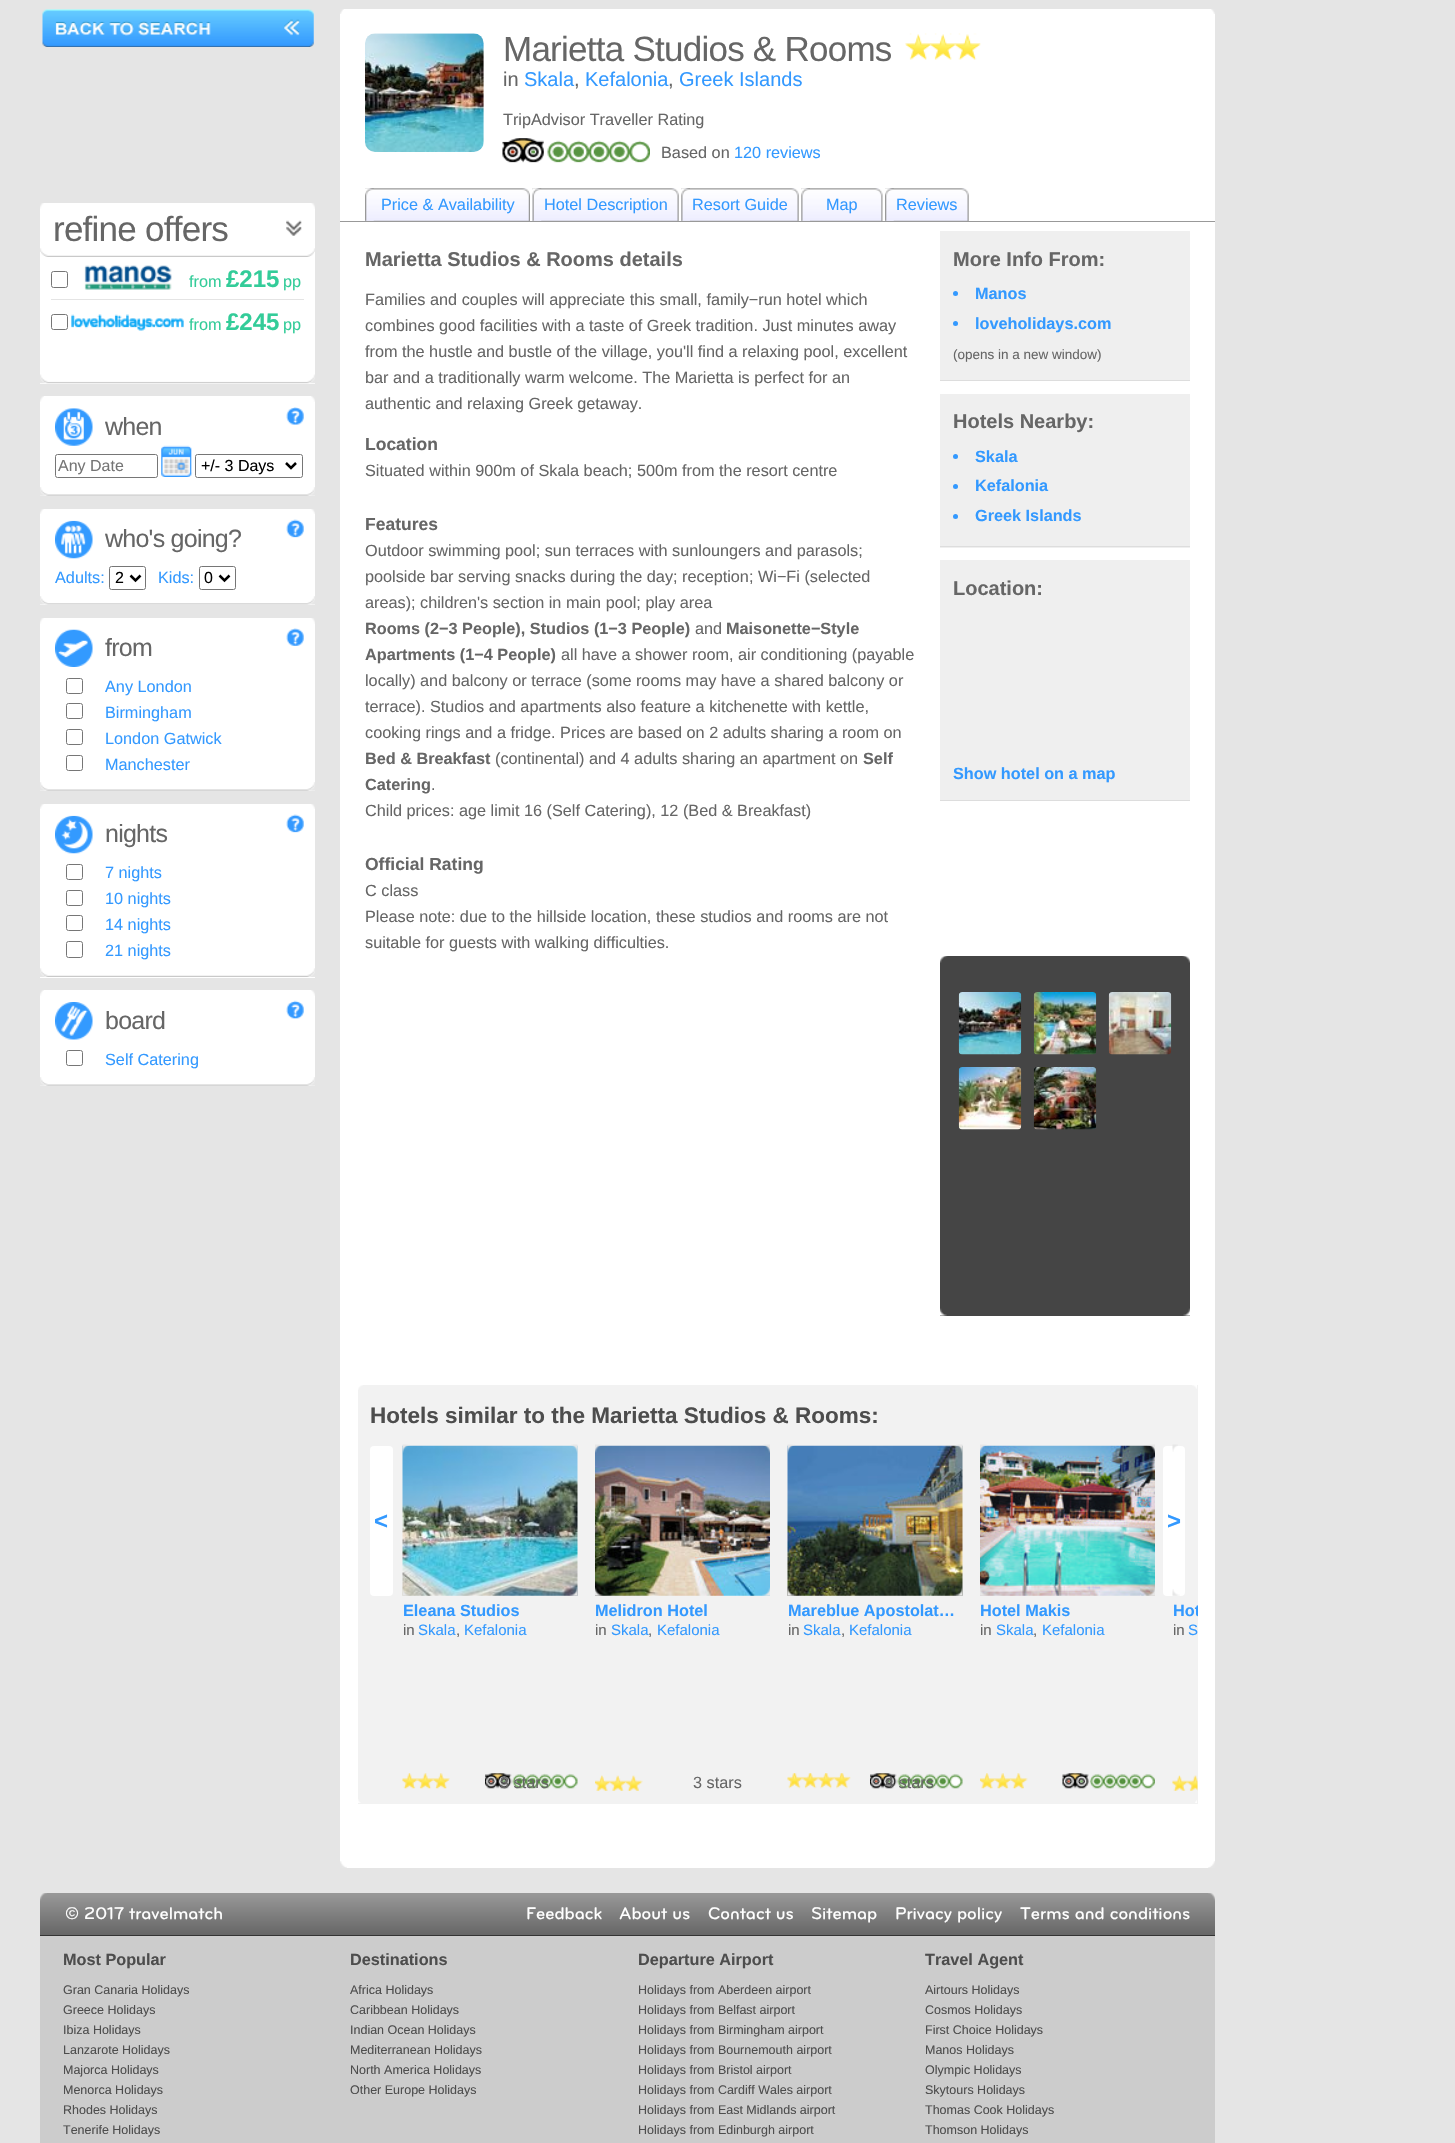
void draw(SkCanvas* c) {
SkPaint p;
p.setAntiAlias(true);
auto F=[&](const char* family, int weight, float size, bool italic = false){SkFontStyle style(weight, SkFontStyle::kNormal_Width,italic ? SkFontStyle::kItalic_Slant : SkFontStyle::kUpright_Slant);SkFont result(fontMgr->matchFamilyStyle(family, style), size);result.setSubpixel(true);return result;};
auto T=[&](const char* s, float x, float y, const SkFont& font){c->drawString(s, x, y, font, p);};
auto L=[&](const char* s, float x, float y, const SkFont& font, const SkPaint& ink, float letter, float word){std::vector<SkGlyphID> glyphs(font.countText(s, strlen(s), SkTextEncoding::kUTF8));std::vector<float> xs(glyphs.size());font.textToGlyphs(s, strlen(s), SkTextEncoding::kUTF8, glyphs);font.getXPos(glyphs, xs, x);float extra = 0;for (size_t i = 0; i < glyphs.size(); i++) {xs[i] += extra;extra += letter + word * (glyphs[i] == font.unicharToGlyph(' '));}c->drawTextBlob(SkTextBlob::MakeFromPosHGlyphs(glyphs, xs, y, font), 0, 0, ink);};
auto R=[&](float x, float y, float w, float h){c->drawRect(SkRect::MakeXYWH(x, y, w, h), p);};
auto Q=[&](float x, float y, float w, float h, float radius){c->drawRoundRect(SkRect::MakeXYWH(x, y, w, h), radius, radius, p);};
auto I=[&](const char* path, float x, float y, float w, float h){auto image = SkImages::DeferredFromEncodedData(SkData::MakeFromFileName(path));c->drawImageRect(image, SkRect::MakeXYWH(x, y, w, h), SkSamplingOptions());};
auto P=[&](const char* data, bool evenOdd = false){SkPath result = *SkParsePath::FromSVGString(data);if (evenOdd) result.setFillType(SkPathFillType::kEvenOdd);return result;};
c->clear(0xffe5e5e5);
I("1.png",42,9,272,38);
p.setColor(0xffffffff);
R(40,203,275,181);
I("2.png",40,374,275,10);
I("3.png",40,203,4,6);
I("4.png",311,203,4,6);
I("5.png",40,248,275,9);
I("6.png",286,220,16,16);
auto f1 = F("Liberation Sans",400,35);
p.setColor(0xff666666);
L("refine offers",53,241,f1,p,-.75,0);
p.setStroke(true);
p.setStrokeWidth(1);
p.setColor(0xff767676);
c->drawRoundRect(SkRect::MakeXYWH(51.5,271.5,16,16),2,2,p);
I("7.png",84,265,88,25);
auto f2 = F("Liberation Sans",400,16.25);
p.setStroke(false);
p.setColor(0xff33cc99);
T("from",189,287,f2);
auto f3 = F("Liberation Sans",700,24);
T("£215",226,287,f3);
T("pp",283,287,f2);
p.setColor(0xffe4e4e4);
R(51,299,253,1);
p.setStroke(true);
p.setColor(0xff767676);
c->drawRoundRect(SkRect::MakeXYWH(51.5,314.5,16,15),2,2,p);
I("8.png",71,314,113,17);
p.setStroke(false);
p.setColor(0xff33cc99);
T("from",189,330,f2);
T("£245",226,330,f3);
T("pp",283,330,f2);
I("9.png",40,378,5,6);
I("10.png",310,378,5,6);
p.setColor(0xffffffff);
R(40,396,275,100);
I("11.png",40,487,275,9);
I("12.png",40,396,4,6);
I("13.png",311,396,4,6);
I("14.png",55,408,38,38);
auto f4 = F("Liberation Sans",400,25);
p.setColor(0xff666666);
L("when",105,435,f4,p,-.75,0);
I("15.png",286,407,18,18);
p.setStroke(true);
p.setColor(0xff767676);
c->drawRoundRect(SkRect::MakeXYWH(55.5,454.5,102,23),2,2,p);
auto f5 = F("Liberation Sans",400,16);
p.setStroke(false);
p.setColor(0xff757575);
T("Any Date",58,471,f5);
I("16.png",161,445,32,32);
p.setStroke(true);
p.setColor(0xff767676);
c->drawRoundRect(SkRect::MakeXYWH(195.5,454.5,107,23),2,2,p);
p.setStrokeWidth(2.5);
p.setColor(0xff000000);
c->drawPath(P("M286 463l5 5l5-5"),p);
p.setStroke(false);
T("+/- 3 Days",201,471,f5);
I("17.png",40,490,5,6);
I("18.png",310,490,5,6);
p.setColor(0xffffffff);
R(40,509,275,96);
I("19.png",40,596,275,9);
I("20.png",40,509,4,5);
I("21.png",311,509,4,5);
I("22.png",55,520,38,39);
p.setColor(0xff666666);
L("who's going?",105,547,f4,p,-.75,0);
I("23.png",286,519,18,19);
p.setColor(0xff3399ff);
T("Adults:",55,583,f2);
p.setStroke(true);
p.setStrokeWidth(1);
p.setColor(0xff767676);
c->drawRoundRect(SkRect::MakeXYWH(109.5,566.5,36,23),2,2,p);
p.setStrokeWidth(2.5);
p.setColor(0xff000000);
c->drawPath(P("M130.5 575.5l5 5l5-5"),p);
p.setStroke(false);
T("2",115,583,f5);
p.setColor(0xff3399ff);
T("Kids:",158,583,f2);
p.setStroke(true);
p.setStrokeWidth(1);
p.setColor(0xff767676);
c->drawRoundRect(SkRect::MakeXYWH(199.5,566.5,36,23),2,2,p);
p.setStrokeWidth(2.5);
p.setColor(0xff000000);
c->drawPath(P("M219.5 575.5l5 5l5-5"),p);
p.setStroke(false);
T("0",204,583,f5);
I("24.png",40,599,6,6);
I("25.png",309,599,6,6);
p.setColor(0xffffffff);
R(40,618,275,173);
I("11.png",40,782,275,9);
I("3.png",40,618,4,6);
I("4.png",311,618,4,6);
I("26.png",55,629,38,38);
p.setColor(0xff666666);
L("from",105,656,f4,p,-.75,0);
I("27.png",286,628,18,18);
p.setStroke(true);
p.setStrokeWidth(1);
p.setColor(0xff767676);
c->drawRoundRect(SkRect::MakeXYWH(66.5,678.5,16,15),2,2,p);
p.setStroke(false);
p.setColor(0xff3399ff);
T("Any London",105,692,f2);
p.setStroke(true);
p.setColor(0xff767676);
c->drawRoundRect(SkRect::MakeXYWH(66.5,703.5,16,15),2,2,p);
p.setStroke(false);
p.setColor(0xff3399ff);
T("Birmingham",105,718,f2);
p.setStroke(true);
p.setColor(0xff767676);
c->drawRoundRect(SkRect::MakeXYWH(66.5,729.5,16,15),2,2,p);
p.setStroke(false);
p.setColor(0xff3399ff);
T("London Gatwick",105,744,f2);
p.setStroke(true);
p.setColor(0xff767676);
c->drawRoundRect(SkRect::MakeXYWH(66.5,755.5,16,15),2,2,p);
p.setStroke(false);
p.setColor(0xff3399ff);
T("Manchester",105,770,f2);
I("17.png",40,785,5,6);
I("18.png",310,785,5,6);
p.setColor(0xffffffff);
R(40,804,275,174);
I("5.png",40,968,275,9);
I("20.png",40,804,4,5);
I("21.png",311,804,4,5);
I("28.png",55,815,38,39);
p.setColor(0xff666666);
L("nights",105,842,f4,p,-.75,0);
I("23.png",286,814,18,19);
p.setStroke(true);
p.setColor(0xff767676);
c->drawRoundRect(SkRect::MakeXYWH(66.5,864.5,16,15),2,2,p);
p.setStroke(false);
p.setColor(0xff3399ff);
T("7 nights",105,878,f2);
p.setStroke(true);
p.setColor(0xff767676);
c->drawRoundRect(SkRect::MakeXYWH(66.5,890.5,16,15),2,2,p);
p.setStroke(false);
p.setColor(0xff3399ff);
T("10 nights",105,904,f2);
p.setStroke(true);
p.setColor(0xff767676);
c->drawRoundRect(SkRect::MakeXYWH(66.5,915.5,16,15),2,2,p);
p.setStroke(false);
p.setColor(0xff3399ff);
T("14 nights",105,930,f2);
p.setStroke(true);
p.setColor(0xff767676);
c->drawRoundRect(SkRect::MakeXYWH(66.5,941.5,16,16),2,2,p);
p.setStroke(false);
p.setColor(0xff3399ff);
T("21 nights",105,956,f2);
I("29.png",40,972,5,5);
I("30.png",310,972,5,5);
p.setColor(0xffffffff);
R(40,990,275,96);
I("11.png",40,1077,275,9);
I("31.png",40,990,4,6);
I("32.png",311,990,4,6);
I("33.png",55,1002,38,38);
p.setColor(0xff666666);
L("board",105,1029,f4,p,-.75,0);
I("34.png",286,1000,18,19);
p.setStroke(true);
p.setColor(0xff767676);
c->drawRoundRect(SkRect::MakeXYWH(66.5,1050.5,16,15),2,2,p);
p.setStroke(false);
p.setColor(0xff3399ff);
T("Self Catering",105,1065,f2);
I("17.png",40,1080,5,6);
I("18.png",310,1080,5,6);
p.setColor(0xffffffff);
R(340,9,875,1859);
I("20.png",340,9,4,5);
I("35.png",340,9,4,5);
I("21.png",1211,9,4,5);
I("36.png",1211,9,4,5);
I("95.png",340,1861,7,7);
I("37.png",340,1861,7,7);
I("96.png",1208,1861,7,7);
I("38.png",1208,1861,7,7);
p.setColor(0xff999999);
R(340,221,875,1);
I("39.png",365,33,119,119);
p.setColor(0x08ffffff);
R(482,39,1,2);
I("40.png",365,143,9,9);
I("41.png",475,144,8,8);
p.setColor(0xff666666);
L("Marietta Studios & Rooms",503,61,f1,p,-.75,0);
I("42.png",905,33,76,27);
auto f6 = F("Liberation Sans",400,20);
T("in",503,86,f6);
p.setColor(0xff3399ff);
T("Skala",524,86,f6);
p.setColor(0xff666666);
T(",",574,86,f6);
p.setColor(0xff3399ff);
T("Kefalonia",585,86,f6);
p.setColor(0xff666666);
T(",",668,86,f6);
p.setColor(0xff3399ff);
T("Greek Islands",679,86,f6);
p.setColor(0xff666666);
T("TripAdvisor Traveller Rating",503,125,f2);
I("43.png",502,138,148,25);
T("Based on",661,158,f2);
p.setColor(0xff3399ff);
T("120 reviews",734,158,f2);
I("44.png",365,188,165,33);
I("45.png",365,188,9,33);
T("Price & Availability",381,210,f2);
I("46.png",532,188,147,33);
I("47.png",532,188,10,33);
T("Hotel Description",544,210,f2);
I("48.png",681,188,118,33);
I("49.png",681,188,9,33);
T("Resort Guide",692,210,f2);
I("50.png",801,188,82,33);
I("49.png",801,188,9,33);
T("Map",826,210,f2);
I("51.png",885,188,84,33);
I("45.png",885,188,9,33);
T("Reviews",896,210,f2);
auto f7 = F("Liberation Sans",700,20);
p.setColor(0xff666666);
T("Marietta Studios & Rooms details",365,266,f7);
T("Families and couples will appreciate this small, family−run hotel which",365,305,f2);
T("combines good facilities with a taste of Greek tradition. Just minutes away",365,331,f2);
T("from the hustle and bustle of the village, you'll find a relaxing pool, excellent",365,357,f2);
T("bar and a traditionally warm welcome. The Marietta is perfect for an",365,383,f2);
T("authentic and relaxing Greek getaway.",365,409,f2);
auto f8 = F("Liberation Sans",700,17.5);
T("Location",365,450,f8);
T("Situated within 900m of Skala beach; 500m from the resort centre",365,476,f2);
T("Features",365,530,f8);
T("Outdoor swimming pool; sun terraces with sunloungers and parasols;",365,556,f2);
T("poolside bar serving snacks during the day; reception; Wi−Fi (selected",365,582,f2);
T("areas); children's section in main pool; play area",365,608,f2);
auto f9 = F("Liberation Sans",700,16.25);
T("Rooms (2−3 People), Studios (1−3 People)",365,634,f9);
T("and",695,634,f2);
T("Maisonette−Style",726,634,f9);
T("Apartments (1−4 People)",365,660,f9);
T("all have a shower room, air conditioning (payable",561,660,f2);
T("locally) and balcony or terrace (some rooms may have a shared balcony or",365,686,f2);
T("terrace). Studios and apartments also feature a kitchenette with kettle,",365,712,f2);
T("cooking rings and a fridge. Prices are based on 2 adults sharing a room on",365,738,f2);
T("Bed & Breakfast",365,764,f9);
T("(continental) and 4 adults sharing an apartment on",495,764,f2);
T("Self",863,764,f9);
T("Catering",365,790,f9);
T(".",431,790,f2);
T("Child prices: age limit 16 (Self Catering), 12 (Bed & Breakfast)",365,816,f2);
T("Official Rating",365,870,f8);
T("C class",365,896,f2);
T("Please note: due to the hillside location, these studios and rooms are not",365,922,f2);
T("suitable for guests with walking difficulties.",365,948,f2);
p.setColor(0xffefefef);
R(940,231,250,149);
p.setColor(0xffdddddd);
R(940,380,250,1);
p.setColor(0xff666666);
T("More Info From:",953,266,f7);
p.setColor(0xff3399ff);
c->drawCircle(955.5,293.5,2.5,p);
T("Manos",975,299,f9);
c->drawCircle(955.5,323.5,2.5,p);
T("loveholidays.com",975,329,f9);
auto f10 = F("Liberation Sans",400,13.5);
p.setColor(0xff666666);
T("(opens in a new window)",953,359,f10);
p.setColor(0xffefefef);
R(940,394,250,154);
p.setColor(0xffdddddd);
R(940,546,250,1);
p.setColor(0xff666666);
T("Hotels Nearby:",953,428,f7);
p.setColor(0xff3399ff);
c->drawCircle(955.5,456.5,2.5,p);
T("Skala",975,462,f9);
c->drawCircle(955.5,486.5,2.5,p);
T("Kefalonia",975,491,f9);
c->drawCircle(955.5,516.5,2.5,p);
T("Greek Islands",975,521,f9);
p.setColor(0xffefefef);
R(940,560,250,240);
p.setColor(0xffdddddd);
R(940,800,250,1);
p.setColor(0xff666666);
T("Location:",953,595,f7);
p.setColor(0xff3399ff);
T("Show hotel on a map",953,779,f9);
p.setColor(0xff454545);
R(940,956,250,360);
I("52.png",940,956,8,7);
I("53.png",1182,956,8,7);
I("54.png",958,992,64,63);
I("55.png",1033,992,64,63);
I("56.png",1108,992,64,63);
I("57.png",958,1067,64,63);
I("58.png",1033,1067,64,63);
I("59.png",940,1308,7,8);
I("60.png",1183,1308,7,8);
p.setColor(0xfff2f2f2);
R(358,1385,840,419);
I("61.png",358,1385,5,5);
I("62.png",1192,1385,5,4);
auto f11 = F("Liberation Sans",700,22.5);
p.setColor(0xff4d4d4d);
T("Hotels similar to the Marietta Studios & Rooms:",370,1423,f11);
p.setColor(0xffffffff);
Q(370,1446,23,150,4);
p.setColor(0xff3399ff);
T("<",374,1529,f3);
p.setColor(0xffffffff);
Q(1163,1446,22,150,4);
p.setColor(0xff3399ff);
T(">",1167,1529,f3);
I("65.png",402,1445,176,151);
I("63.png",402,1444,8,9);
I("64.png",571,1444,7,9);
I("66.png",402,1588,8,8);
I("67.png",569,1587,9,9);
T("Eleana Studios",403,1616,f9);
auto f12 = F("Liberation Sans",400,15);
p.setColor(0xff666666);
T("in",403,1635,f12);
p.setColor(0xff3399ff);
T("Skala",418,1635,f12);
p.setColor(0xff666666);
T(",",456,1635,f12);
p.setColor(0xff3399ff);
T("Kefalonia",464,1635,f12);
I("68.png",402,1773,48,16);
I("69.png",485,1773,93,16);
I("72.png",595,1445,175,151);
I("70.png",595,1444,7,9);
I("71.png",763,1444,7,9);
I("73.png",595,1587,9,9);
I("74.png",762,1587,8,9);
T("Melidron Hotel",595,1616,f9);
p.setColor(0xff666666);
T("in",595,1635,f12);
p.setColor(0xff3399ff);
T("Skala",611,1635,f12);
p.setColor(0xff666666);
T(",",648,1635,f12);
p.setColor(0xff3399ff);
T("Kefalonia",657,1635,f12);
I("75.png",595,1775,48,16);
I("78.png",787,1445,176,151);
I("76.png",787,1444,8,9);
I("77.png",956,1444,7,9);
I("79.png",787,1587,9,9);
I("80.png",954,1587,9,9);
T("Mareblue Apostolat…",788,1616,f9);
p.setColor(0xff666666);
T("in",788,1635,f12);
p.setColor(0xff3399ff);
T("Skala",803,1635,f12);
p.setColor(0xff666666);
T(",",841,1635,f12);
p.setColor(0xff3399ff);
T("Kefalonia",849,1635,f12);
I("81.png",787,1773,64,16);
I("82.png",870,1773,93,16);
I("85.png",980,1445,175,151);
I("83.png",980,1444,7,9);
I("84.png",1147,1444,8,9);
I("86.png",980,1589,8,7);
I("87.png",1147,1588,8,8);
T("Hotel Makis",980,1616,f9);
p.setColor(0xff666666);
T("in",980,1635,f12);
p.setColor(0xff3399ff);
T("Skala",996,1635,f12);
p.setColor(0xff666666);
T(",",1033,1635,f12);
p.setColor(0xff3399ff);
T("Kefalonia",1042,1635,f12);
I("88.png",980,1773,48,16);
I("89.png",1062,1773,93,16);
I("90.png",1172,1444,6,8);
I("91.png",1172,1589,8,7);
c->save();
c->clipRect(SkRect::MakeXYWH(358,1385,840,419));
T("Hot",1173,1616,f9);
c->restore();
p.setColor(0xff666666);
T("in",1173,1635,f12);
p.setColor(0xff3399ff);
T("S",1188,1635,f12);
I("92.png",1172,1775,26,16);
p.setColor(0xff666666);
T("3 stars",500,1788,f2);
T("3 stars",693,1788,f2);
T("4 stars",885,1788,f2);
I("93.png",358,1799,3,4);
I("94.png",1195,1800,2,3);
p.setColor(0xffcccccc);
R(40,1936,1175,207);
{
const SkColor colors[] = {0xff999999,0xff666666};
const float stops[] = {0,1};
const SkPoint ends[] = {{40,1893}, {40,1935}};
p.setShader(SkGradientShader::MakeLinear(ends, colors, stops, 2, SkTileMode::kClamp));
p.setAlpha(255);
}
R(40,1893,1175,42);
I("97.png",40,1893,7,8);
I("98.png",1208,1893,7,8);
p.setShader(nullptr);
p.setColor(0xff333333);
R(40,1935,1175,1);
auto f13 = F("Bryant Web",500,17.5);
p.setColor(0xffffffff);
T("© 2017 travelmatch",65,1919,f13);
T("Feedback",526,1919,f13);
T("About us",619,1919,f13);
T("Contact us",708,1919,f13);
T("Sitemap",811,1919,f13);
T("Privacy policy",895,1919,f13);
T("Terms and conditions",1020,1919,f13);
p.setColor(0xff4d4d4d);
T("Most Popular",63,1965,f9);
auto f14 = F("Liberation Sans",400,12.5);
T("Gran Canaria Holidays",63,1994,f14);
T("Greece Holidays",63,2014,f14);
T("Ibiza Holidays",63,2034,f14);
T("Lanzarote Holidays",63,2054,f14);
T("Majorca Holidays",63,2074,f14);
T("Menorca Holidays",63,2094,f14);
T("Rhodes Holidays",63,2114,f14);
T("Tenerife Holidays",63,2134,f14);
T("Destinations",350,1965,f9);
T("Africa Holidays",350,1994,f14);
T("Caribbean Holidays",350,2014,f14);
T("Indian Ocean Holidays",350,2034,f14);
T("Mediterranean Holidays",350,2054,f14);
T("North America Holidays",350,2074,f14);
T("Other Europe Holidays",350,2094,f14);
T("Departure Airport",638,1965,f9);
T("Holidays from Aberdeen airport",638,1994,f14);
T("Holidays from Belfast airport",638,2014,f14);
T("Holidays from Birmingham airport",638,2034,f14);
T("Holidays from Bournemouth airport",638,2054,f14);
T("Holidays from Bristol airport",638,2074,f14);
T("Holidays from Cardiff Wales airport",638,2094,f14);
T("Holidays from East Midlands airport",638,2114,f14);
T("Holidays from Edinburgh airport",638,2134,f14);
T("Travel Agent",925,1965,f9);
T("Airtours Holidays",925,1994,f14);
T("Cosmos Holidays",925,2014,f14);
T("First Choice Holidays",925,2034,f14);
T("Manos Holidays",925,2054,f14);
T("Olympic Holidays",925,2074,f14);
T("Skytours Holidays",925,2094,f14);
T("Thomas Cook Holidays",925,2114,f14);
T("Thomson Holidays",925,2134,f14);
}
